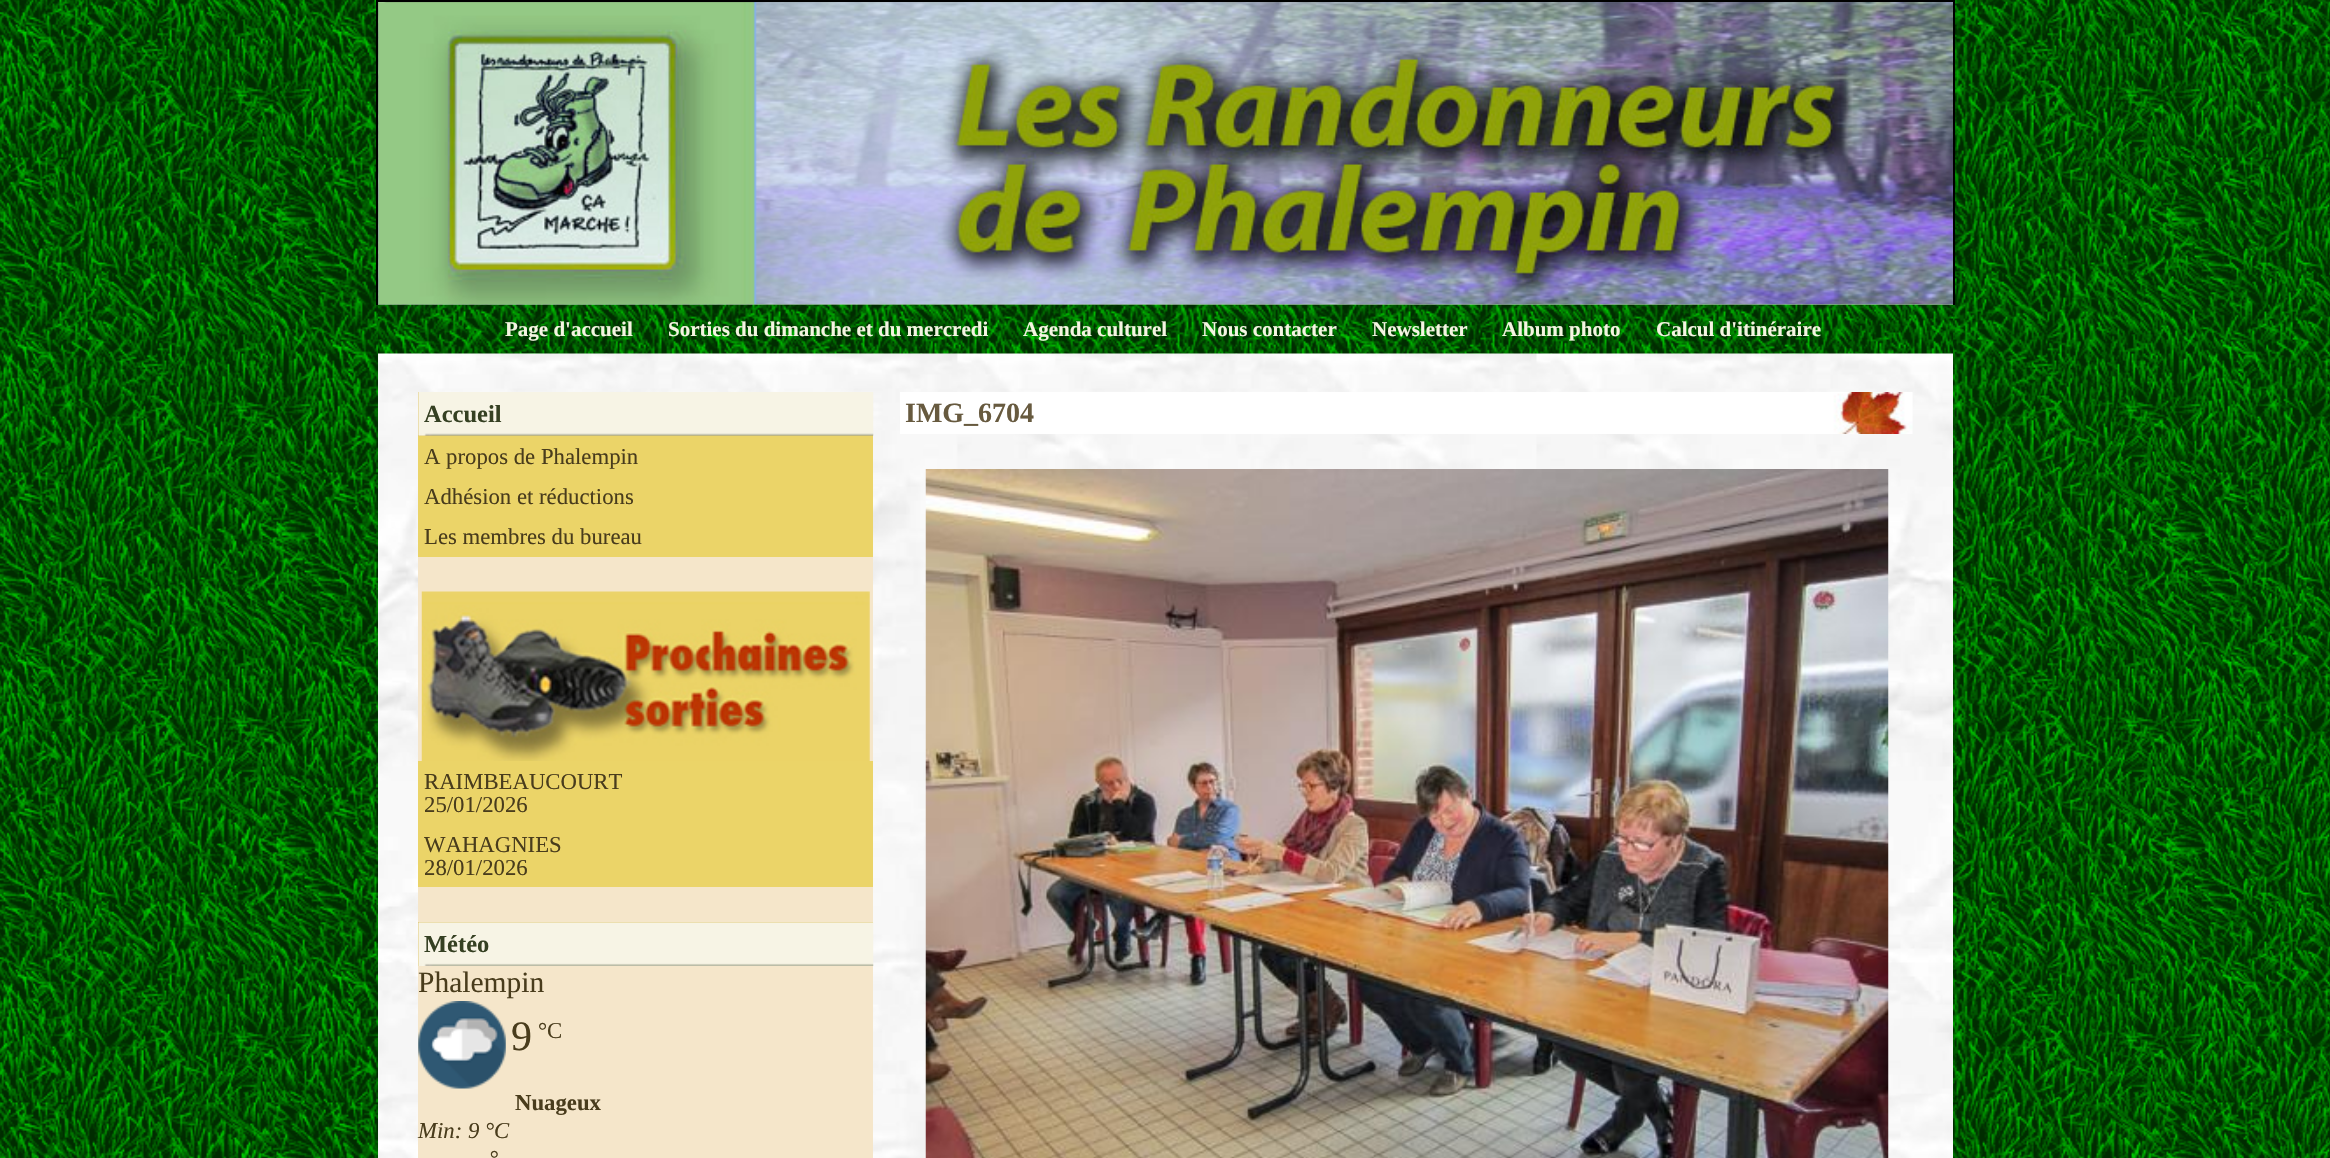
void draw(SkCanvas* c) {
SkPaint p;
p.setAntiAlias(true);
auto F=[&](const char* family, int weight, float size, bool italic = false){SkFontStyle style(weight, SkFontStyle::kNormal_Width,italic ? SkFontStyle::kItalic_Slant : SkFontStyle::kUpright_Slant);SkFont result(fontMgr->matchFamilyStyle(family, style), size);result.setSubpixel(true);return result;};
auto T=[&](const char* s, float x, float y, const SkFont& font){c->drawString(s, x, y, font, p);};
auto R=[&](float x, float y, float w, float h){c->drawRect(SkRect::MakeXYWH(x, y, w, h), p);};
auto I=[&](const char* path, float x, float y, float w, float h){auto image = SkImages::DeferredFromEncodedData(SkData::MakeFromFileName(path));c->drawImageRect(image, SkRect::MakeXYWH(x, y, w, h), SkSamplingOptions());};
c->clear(0xffffffff);
I("1.png",0,0,2330,1158);
I("2.png",378,2,1575,303);
p.setColor(0xff000000);
R(376,0,1579,2);
R(1953,0,2,305);
R(376,0,2,305);
I("3.png",378,304,1575,854);
I("4.png",378,304,1575,50);
auto f1 = F("Liberation Serif",700,21);
p.setColor(0xfff5f5e2);
T("Page d'accueil",505,336,f1);
T("Sorties du dimanche et du mercredi",668,336,f1);
T("Agenda culturel",1023,336,f1);
T("Nous contacter",1202,336,f1);
T("Newsletter",1372,336,f1);
T("Album photo",1502,336,f1);
T("Calcul d'itinéraire",1656,336,f1);
p.setColor(0xfff5e6ca);
R(418,557,455,601);
p.setColor(0xffc89f0c);
R(418,392,455,44);
I("5.png",418,392,456,44);
auto f2 = F("Liberation Serif",700,24.5);
p.setColor(0xff354022);
T("Accueil",424,422,f2);
p.setColor(0xffebd468);
R(418,436,455,121);
auto f3 = F("Liberation Serif",400,22.75);
p.setColor(0xff493c1c);
T("A propos de Phalempin",424,464,f3);
T("Adhésion et réductions",424,504,f3);
T("Les membres du bureau",424,544,f3);
I("6.png",421,591,449,170);
p.setColor(0xffebd468);
R(418,761,455,126);
p.setColor(0xff493c1c);
T("RAIMBEAUCOURT",424,789,f3);
T("25/01/2026",424,812,f3);
T("WAHAGNIES",424,852,f3);
T("28/01/2026",424,875,f3);
p.setColor(0xffc89f0c);
R(418,922,455,44);
I("7.png",418,922,456,44);
p.setColor(0xff354022);
T("Météo",424,952,f2);
auto f4 = F("Liberation Serif",400,29.5);
p.setColor(0xff493c1c);
T("Phalempin",418,992,f4);
I("8.png",418,1001,88,88);
auto f5 = F("Liberation Serif",400,42);
T("9",511,1050,f5);
T("°C",538,1038,f3);
auto f6 = F("Liberation Serif",700,22.75);
T("Nuageux",515,1110,f6);
auto f7 = F("Liberation Serif",400,22.75,true);
T("Min: 9 °C",418,1138,f7);
T("°",489,1166,f7);
I("9.png",900,392,1013,42);
auto f8 = F("Liberation Serif",700,28);
p.setColor(0xff675a3f);
T("IMG_6704",905,422,f8);
I("10.png",925,469,964,689);
}
